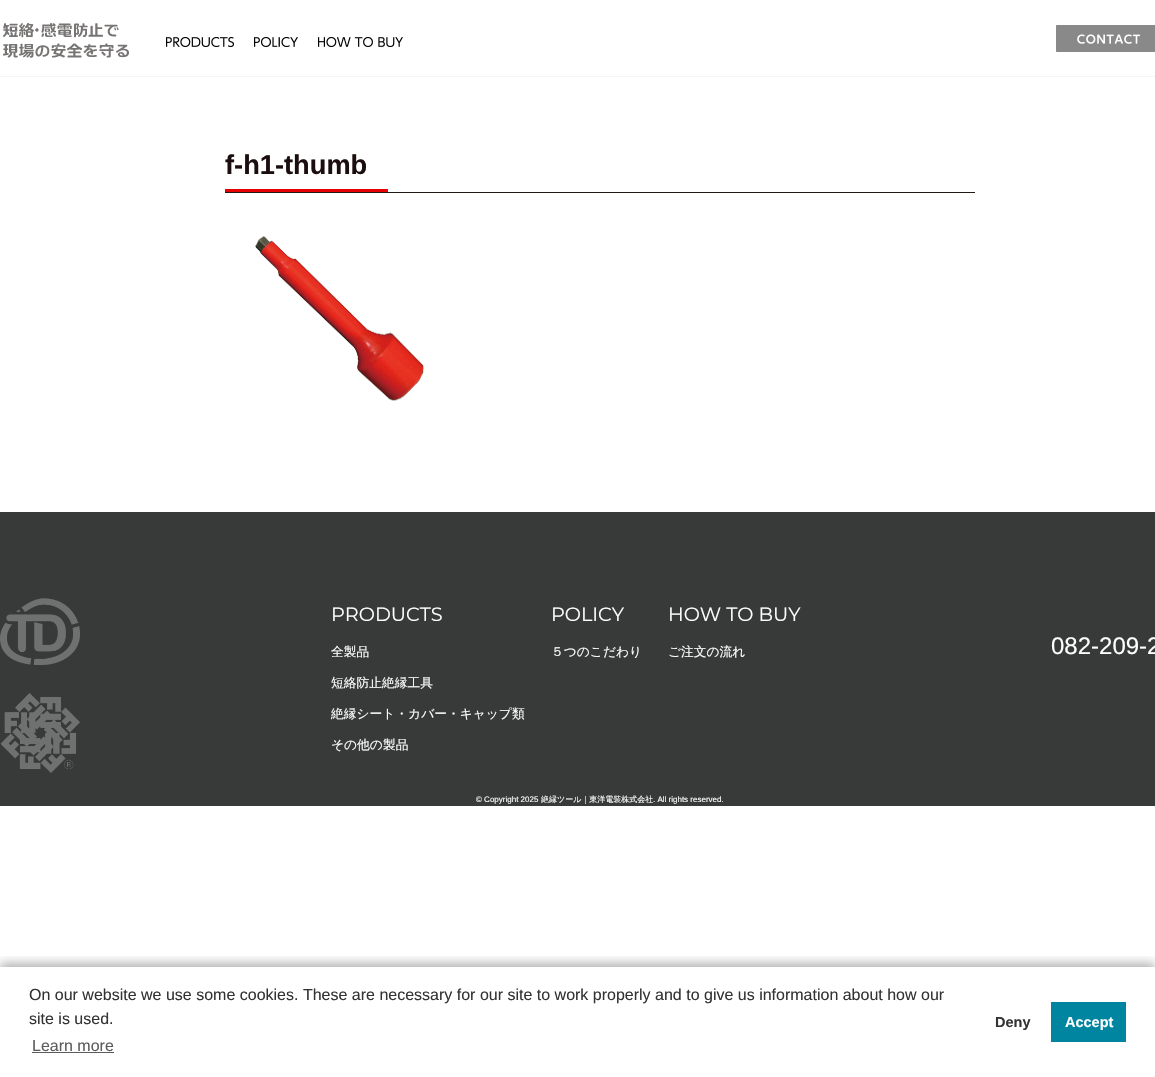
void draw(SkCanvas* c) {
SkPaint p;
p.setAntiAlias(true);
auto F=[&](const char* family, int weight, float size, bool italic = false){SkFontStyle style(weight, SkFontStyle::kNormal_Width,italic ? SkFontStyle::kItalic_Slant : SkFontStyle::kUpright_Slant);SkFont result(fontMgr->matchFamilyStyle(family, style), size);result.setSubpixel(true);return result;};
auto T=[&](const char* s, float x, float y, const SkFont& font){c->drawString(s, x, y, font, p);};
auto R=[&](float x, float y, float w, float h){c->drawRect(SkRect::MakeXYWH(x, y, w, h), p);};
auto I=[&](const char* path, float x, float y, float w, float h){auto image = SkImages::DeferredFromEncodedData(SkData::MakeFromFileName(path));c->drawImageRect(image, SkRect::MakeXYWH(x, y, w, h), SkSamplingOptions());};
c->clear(0xffffffff);
p.setColor(0xfff5f5f5);
R(0,76,1155,1);
I("1.png",3,23,126,35);
I("2.png",166,37,68,10);
I("3.png",254,37,44,10);
I("4.png",318,37,85,10);
I("5.png",1056,25,99,27);
p.setColor(0xff231815);
R(225,192,750,1);
auto f1 = F("Liberation Sans",700,27.25);
p.setColor(0xff1c0e0e);
T("f-h1-thumb",225,174,f1);
p.setColor(0xffe60000);
R(225,189,163,3);
I("6.png",255,235,169,166);
p.setColor(0xff373a39);
R(0,512,1155,294);
I("7.png",0,598,80,67);
I("8.png",0,693,80,80);
auto f2 = F("Montserrat",100,19.25);
p.setColor(0xffffffff);
T("PRODUCTS",331,621,f2);
auto f3 = F("WenQuanYi Zen Hei",500,12.75);
T("全製品",331,656,f3);
T("短絡防止絶縁工具",331,687,f3);
T("絶縁シート・カバー・キャップ類",331,718,f3);
T("その他の製品",331,749,f3);
T("POLICY",551,621,f2);
T("５つのこだわり",551,656,f3);
T("HOW TO BUY",668,621,f2);
T("ご注文の流れ",668,656,f3);
auto f4 = F("Liberation Sans",400,24);
T("082-209-2",1051,654,f4);
auto f5 = F("Liberation Sans",400,8);
T("© Copyright 2025",476,802,f5);
auto f6 = F("WenQuanYi Zen Hei",500,8);
T("絶縁ツール｜東洋電装株式会社",541,802,f6);
T(". All rights reserved.",653,802,f5);
c->save();
c->clipRect(SkRect::MakeXYWH(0,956,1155,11));
p.setColor(0x4d000000);
p.setMaskFilter(SkMaskFilter::MakeBlur(kNormal_SkBlurStyle, 5));
c->drawRect(SkRect::MakeXYWH(0,963,1155,110),p);
p.setMaskFilter(nullptr);
c->restore();
auto f7 = F("Liberation Sans",400,16);
p.setColor(0xff333333);
T("On our website we use some cookies. These are necessary for our site to work properly and to give us information about how our",29,1000,f7);
T("site is used.",29,1024,f7);
p.setColor(0xff5c5c5c);
T("Learn more",32,1051,f7);
R(32,1052,82,1);
auto f8 = F("Liberation Sans",700,14.5);
p.setColor(0xff333333);
T("Deny",995,1027,f8);
p.setColor(0xff0085a1);
R(1051,1002,75,40);
p.setColor(0xffffffff);
T("Accept",1065,1027,f8);
}
